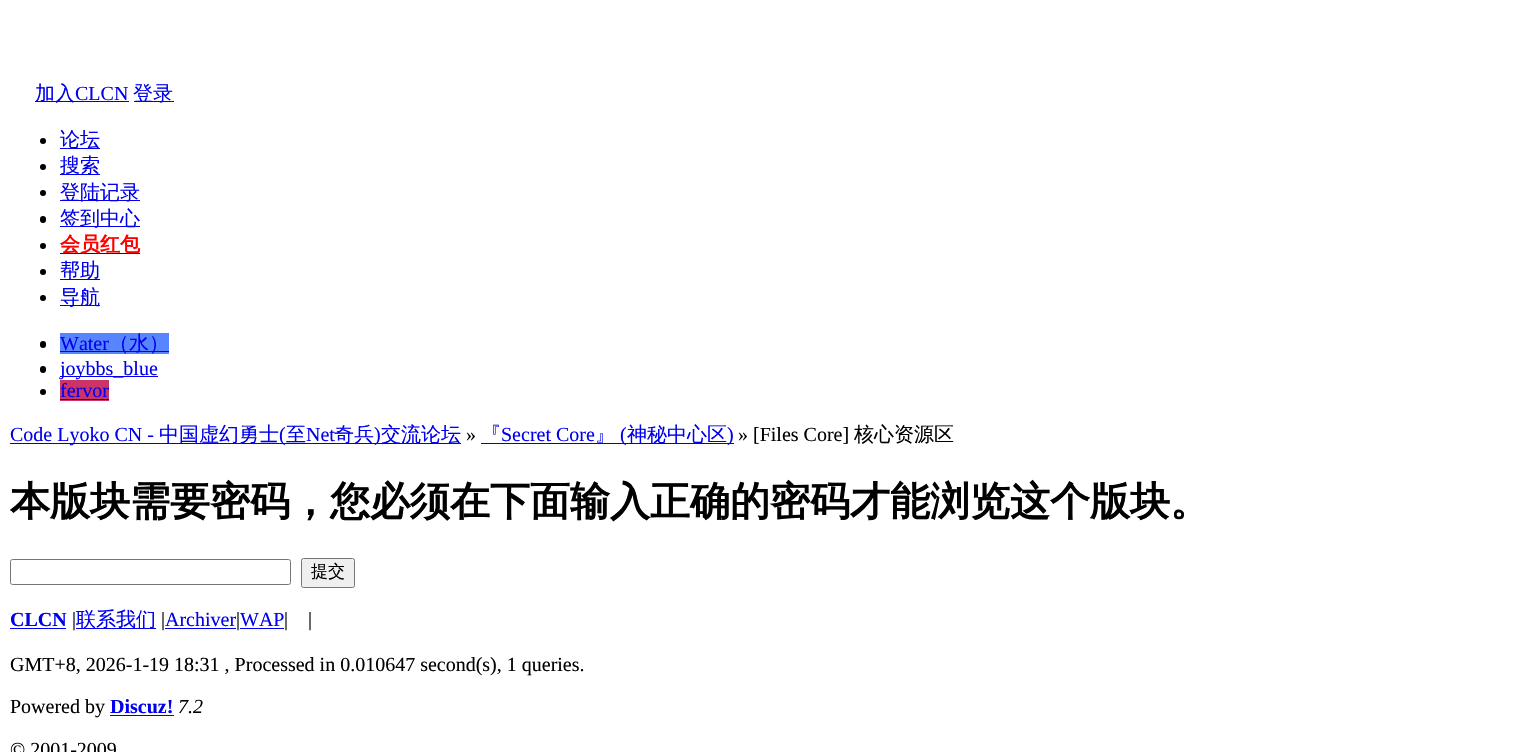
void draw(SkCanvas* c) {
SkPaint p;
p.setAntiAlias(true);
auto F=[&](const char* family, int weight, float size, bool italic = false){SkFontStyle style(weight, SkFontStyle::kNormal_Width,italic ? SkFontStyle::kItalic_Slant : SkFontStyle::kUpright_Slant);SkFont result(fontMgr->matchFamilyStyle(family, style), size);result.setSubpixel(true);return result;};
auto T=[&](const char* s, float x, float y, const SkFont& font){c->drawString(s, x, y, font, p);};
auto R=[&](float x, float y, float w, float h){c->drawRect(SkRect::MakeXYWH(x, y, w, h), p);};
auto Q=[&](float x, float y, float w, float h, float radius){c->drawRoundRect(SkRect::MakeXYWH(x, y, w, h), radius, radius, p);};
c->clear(0xffffffff);
p.setColor(0xff0000ee);
R(35,101,94,1);
auto f1 = F("WenQuanYi Zen Hei",500,20);
T("加入",35,100,f1);
auto f2 = F("Liberation Serif",400,20);
T("CLCN",75,100,f2);
R(134,101,40,1);
T("登录",133,100,f1);
p.setColor(0xff000000);
c->drawCircle(43,141,3,p);
p.setColor(0xff0000ee);
R(60,148,40,1);
T("论坛",60,146,f1);
p.setColor(0xff000000);
c->drawCircle(43,167,3,p);
p.setColor(0xff0000ee);
R(60,174,40,1);
T("搜索",60,172,f1);
p.setColor(0xff000000);
c->drawCircle(43,193,3,p);
p.setColor(0xff0000ee);
R(60,200,80,1);
T("登陆记录",60,199,f1);
p.setColor(0xff000000);
Q(40,216,6,7,3);
p.setColor(0xff0000ee);
R(60,226,80,1);
T("签到中心",60,225,f1);
p.setColor(0xff000000);
c->drawCircle(43,246,3,p);
p.setColor(0xff0000ee);
R(60,253,80,1);
auto f3 = F("WenQuanYi Zen Hei",700,20);
p.setColor(0xffff0000);
T("会员红包",60,251,f3);
p.setColor(0xff000000);
c->drawCircle(43,272,3,p);
p.setColor(0xff0000ee);
R(60,279,40,1);
T("帮助",60,277,f1);
p.setColor(0xff000000);
c->drawCircle(43,298,3,p);
p.setColor(0xff0000ee);
R(60,305,40,1);
T("导航",60,304,f1);
p.setColor(0xff000000);
Q(40,341,6,7,3);
p.setColor(0xff5784ff);
R(60,333,109,21);
p.setColor(0xff0000ee);
T("Water",60,350,f2);
R(60,351,109,1);
T("（水）",109,350,f1);
p.setColor(0xff000000);
Q(40,366,6,7,3);
p.setColor(0xff0000ee);
R(60,376,98,1);
T("joybbs_blue",60,375,f2);
p.setColor(0xff000000);
c->drawCircle(43,392,3,p);
p.setColor(0xffcc3366);
R(60,380,49,21);
p.setColor(0xff0000ee);
T("fervor",60,397,f2);
R(60,399,49,1);
R(10,443,451,1);
T("Code Lyoko CN -",10,441,f2);
T("中国虚幻勇士",159,441,f1);
T("(",279,441,f2);
T("至",286,441,f1);
T("Net",306,441,f2);
T("奇兵",334,441,f1);
T(")",374,441,f2);
T("交流论坛",381,441,f1);
p.setColor(0xff000000);
T("»",466,441,f2);
p.setColor(0xff0000ee);
T("『",481,441,f1);
T("Secret Core",501,441,f2);
T("』",595,441,f1);
R(481,443,253,1);
T("(",620,441,f2);
T("神秘中心区",627,441,f1);
T(")",727,441,f2);
p.setColor(0xff000000);
T("» [Files Core]",738,441,f2);
T("核心资源区",854,441,f1);
auto f4 = F("WenQuanYi Zen Hei",700,40);
T("本版块需要密码，您必须在下面输入正确的密码才能浏览这个版块。",10,515,f4);
p.setStroke(true);
p.setStrokeWidth(1);
p.setColor(0xff767676);
c->drawRoundRect(SkRect::MakeXYWH(10.5,559.5,280,25),2,2,p);
p.setStroke(false);
p.setColor(0xffefefef);
c->drawRoundRect(SkRect::MakeXYWH(301.5,558.5,53,29),2,2,p);
p.setStroke(true);
p.setColor(0xff767676);
c->drawRoundRect(SkRect::MakeXYWH(301.5,558.5,53,29),2,2,p);
auto f5 = F("WenQuanYi Zen Hei",500,17);
p.setStroke(false);
p.setColor(0xff000000);
T("提交",311,577,f5);
auto f6 = F("Liberation Serif",700,20);
p.setColor(0xff0000ee);
T("CLCN",10,626,f6);
R(10,628,56,1);
p.setColor(0xff000000);
T("|",72,626,f2);
p.setColor(0xff0000ee);
R(76,628,80,1);
T("联系我们",76,626,f1);
p.setColor(0xff000000);
T("|",161,626,f2);
p.setColor(0xff0000ee);
T("Archiver",165,626,f2);
R(165,628,71,1);
p.setColor(0xff000000);
T("|",236,626,f2);
p.setColor(0xff0000ee);
T("WAP",240,626,f2);
R(240,628,44,1);
p.setColor(0xff000000);
T("|",284,626,f2);
T("|",308,626,f2);
T("GMT+8, 2026-1-19 18:31 , Processed in 0.010647 second(s), 1 queries.",10,671,f2);
T("Powered by",10,713,f2);
p.setColor(0xff0000ee);
T("Discuz!",110,713,f6);
R(110,715,64,1);
auto f7 = F("Liberation Serif",400,20,true);
p.setColor(0xff000000);
T("7.2",178,713,f7);
T("© 2001-2009",10,756,f2);
}
